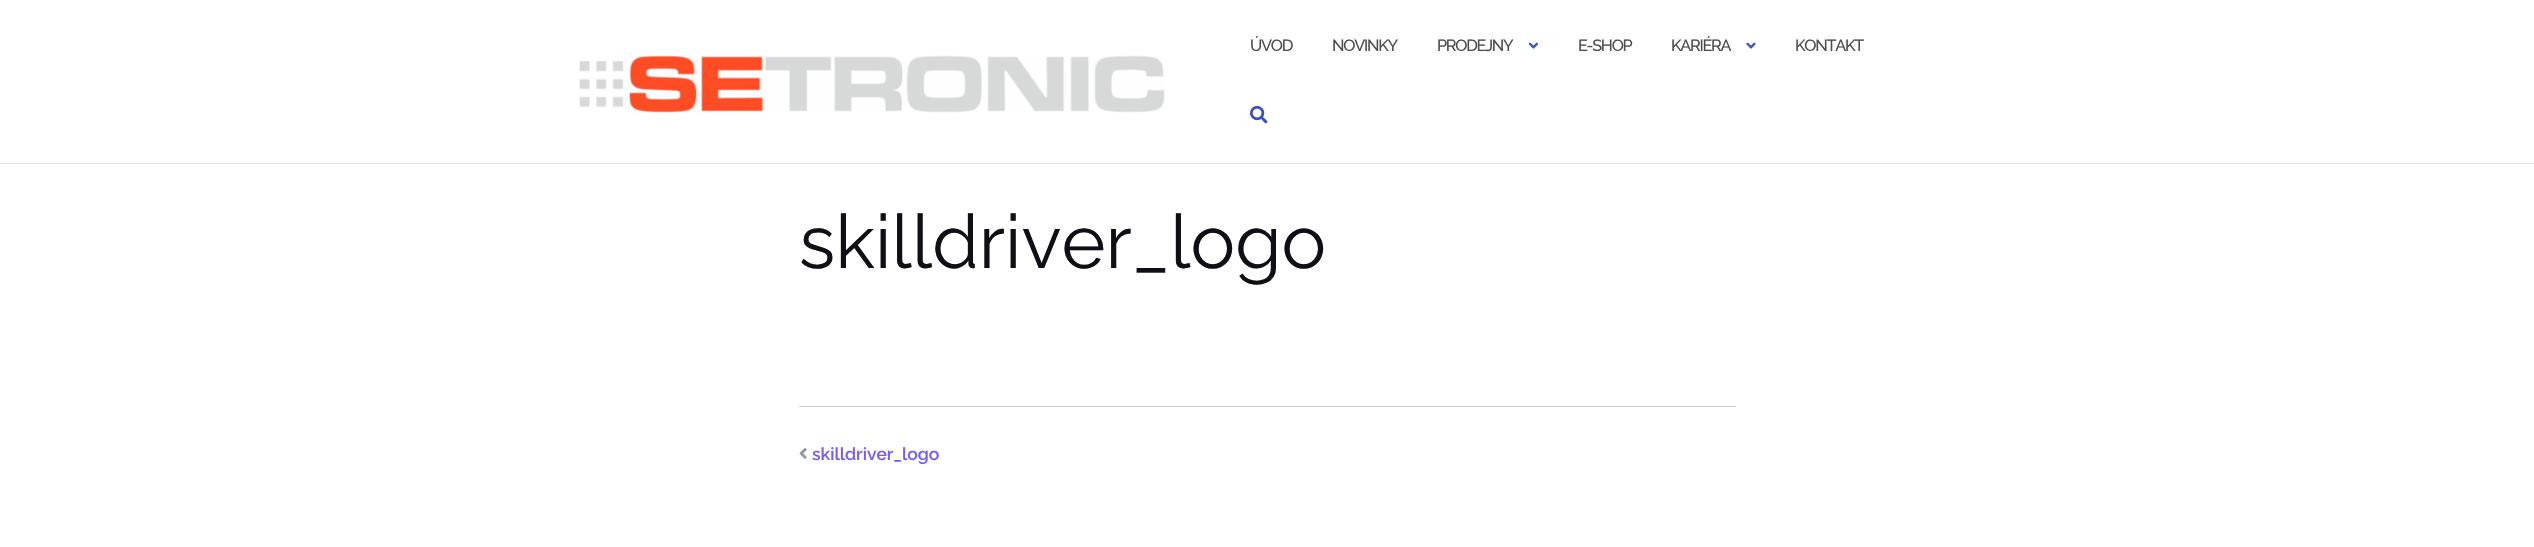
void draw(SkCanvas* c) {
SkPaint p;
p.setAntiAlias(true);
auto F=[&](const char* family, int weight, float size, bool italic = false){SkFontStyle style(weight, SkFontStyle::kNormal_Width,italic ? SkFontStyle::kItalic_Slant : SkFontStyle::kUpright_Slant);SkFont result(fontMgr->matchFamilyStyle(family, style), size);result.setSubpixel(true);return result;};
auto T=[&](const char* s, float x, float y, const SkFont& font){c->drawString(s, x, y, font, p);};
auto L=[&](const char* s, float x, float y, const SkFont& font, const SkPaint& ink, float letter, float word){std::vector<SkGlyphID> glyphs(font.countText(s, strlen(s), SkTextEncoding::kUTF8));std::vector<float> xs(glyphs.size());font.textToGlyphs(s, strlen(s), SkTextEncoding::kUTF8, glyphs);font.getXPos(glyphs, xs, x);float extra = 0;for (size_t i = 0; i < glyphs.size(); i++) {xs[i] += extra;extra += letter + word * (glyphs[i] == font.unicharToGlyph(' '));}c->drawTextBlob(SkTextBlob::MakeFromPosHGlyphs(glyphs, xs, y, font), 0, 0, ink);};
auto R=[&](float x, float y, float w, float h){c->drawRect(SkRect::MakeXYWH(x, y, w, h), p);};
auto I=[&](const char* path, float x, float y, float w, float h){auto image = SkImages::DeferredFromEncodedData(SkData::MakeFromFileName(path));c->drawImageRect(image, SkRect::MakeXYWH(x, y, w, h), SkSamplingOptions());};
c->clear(0xffffffff);
p.setColor(0xffe6e6e6);
R(0,163,2534,1);
auto f1 = F("Raleway",500,16.25);
p.setColor(0xff4c4c4c);
L("ÚVOD",1250,51,f1,p,-1.25,0);
L("NOVINKY",1332,51,f1,p,-1.25,0);
L("PRODEJNY",1437,51,f1,p,-1.25,0);
I("1.png",1528,42,11,7);
L("E-SHOP",1578,51,f1,p,-1.25,0);
L("KARIÉRA",1671,51,f1,p,-1.25,0);
I("2.png",1746,42,10,7);
L("KONTAKT",1795,51,f1,p,-1.25,0);
I("3.png",1250,105,18,19);
I("4.png",579,55,586,58);
auto f2 = F("Raleway",400,75);
p.setColor(0xff0e1015);
T("skilldriver_logo",799,268,f2);
p.setColor(0xffcccccc);
R(799,406,937,1);
I("5.png",799,448,8,11);
auto f3 = F("Raleway",600,17.5);
p.setColor(0xff745cf9);
T("skilldriver_logo",812,460,f3);
}
